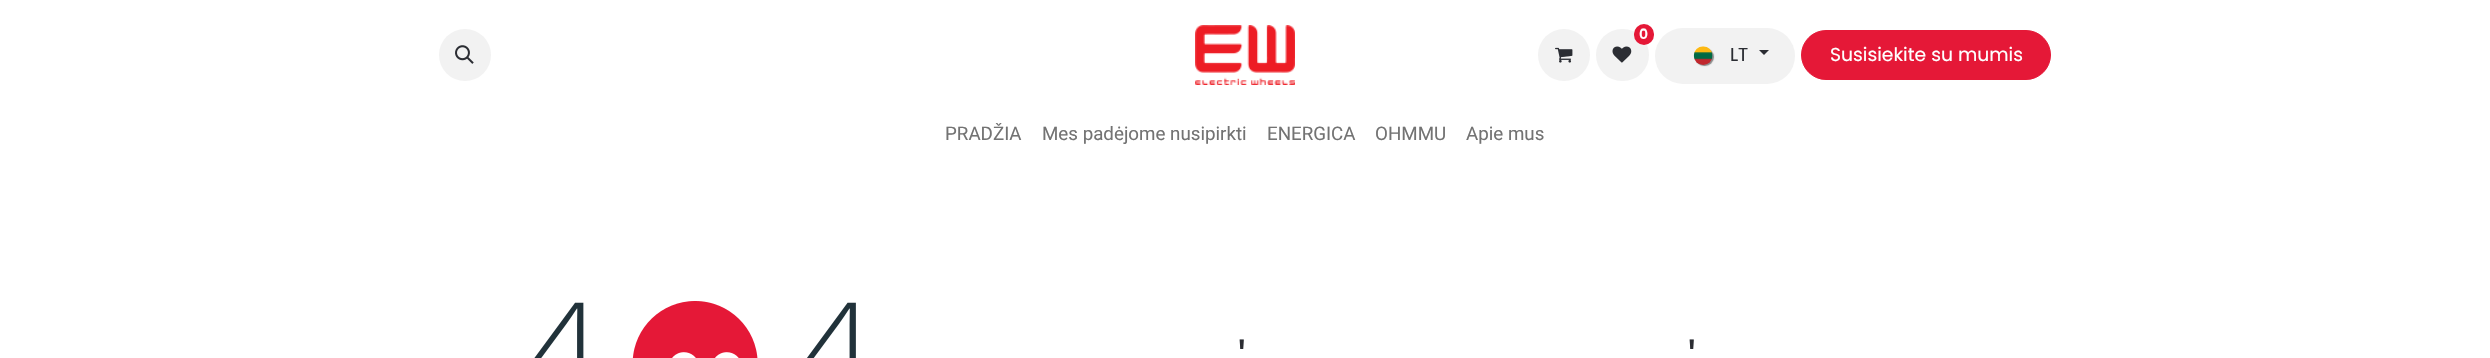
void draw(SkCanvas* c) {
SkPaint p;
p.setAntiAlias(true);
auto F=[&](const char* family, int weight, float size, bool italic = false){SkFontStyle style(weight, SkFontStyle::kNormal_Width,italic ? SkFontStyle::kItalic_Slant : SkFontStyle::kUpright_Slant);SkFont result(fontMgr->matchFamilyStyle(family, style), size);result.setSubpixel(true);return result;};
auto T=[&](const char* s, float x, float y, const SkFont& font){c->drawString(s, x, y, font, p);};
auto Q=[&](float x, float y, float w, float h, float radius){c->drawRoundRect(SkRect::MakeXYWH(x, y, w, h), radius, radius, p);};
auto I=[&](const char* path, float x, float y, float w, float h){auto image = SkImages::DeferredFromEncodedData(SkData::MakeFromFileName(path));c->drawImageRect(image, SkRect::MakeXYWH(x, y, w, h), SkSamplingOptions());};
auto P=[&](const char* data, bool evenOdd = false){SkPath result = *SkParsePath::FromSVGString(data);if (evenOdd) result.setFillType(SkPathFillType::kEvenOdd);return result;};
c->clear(0xffffffff);
p.setColor(0xfff2f2f2);
c->drawCircle(465,55,26,p);
I("1.png",455,45,19,19);
I("2.png",1195,25,100,60);
c->drawCircle(1564,55,26,p);
I("3.png",1555,47,18,16);
Q(1596,29,53,52,26);
p.setColor(0xffe51837);
Q(1634,24,20,21,10);
auto f1 = F("Poppins",600,14);
p.setColor(0xffffffff);
T("0",1639,39,f1);
I("4.png",1612,46,20,17);
p.setColor(0xfff2f2f2);
Q(1655,28,140,56,28);
p.setColor(0x6e000000);
p.setMaskFilter(SkMaskFilter::MakeBlur(kNormal_SkBlurStyle, .5));
c->drawRoundRect(SkRect::MakeXYWH(1695,48,19,18),9,9,p);
p.setMaskFilter(nullptr);
I("5.png",1693,46,20,19);
auto f2 = F("Poppins",400,18.75);
p.setColor(0xff2b2d33);
T("LT",1730,61,f2);
c->drawPath(P("M1759 50h10l-5 5z"),p);
p.setColor(0xffe51837);
c->drawRoundRect(SkRect::MakeXYWH(1801.5,30.5,249,49),24.5,24.5,p);
p.setStroke(true);
p.setStrokeWidth(1);
c->drawRoundRect(SkRect::MakeXYWH(1801.5,30.5,249,49),24.5,24.5,p);
p.setStroke(false);
p.setColor(0xffffffff);
T("Susisiekite su mumis",1830,61,f2);
auto f3 = F("Roboto",400,18.75);
p.setColor(0xff737373);
T("PRADŽIA",945,140,f3);
T("Mes padėjome nusipirkti",1042,140,f3);
T("ENERGICA",1267,140,f3);
T("OHMMU",1375,140,f3);
T("Apie mus",1466,140,f3);
I("6.png",534,301,322,57);
auto f4 = F("Poppins",400,47);
p.setColor(0xff2b2d33);
T("'",1238,377,f4);
T("'",1688,377,f4);
}
